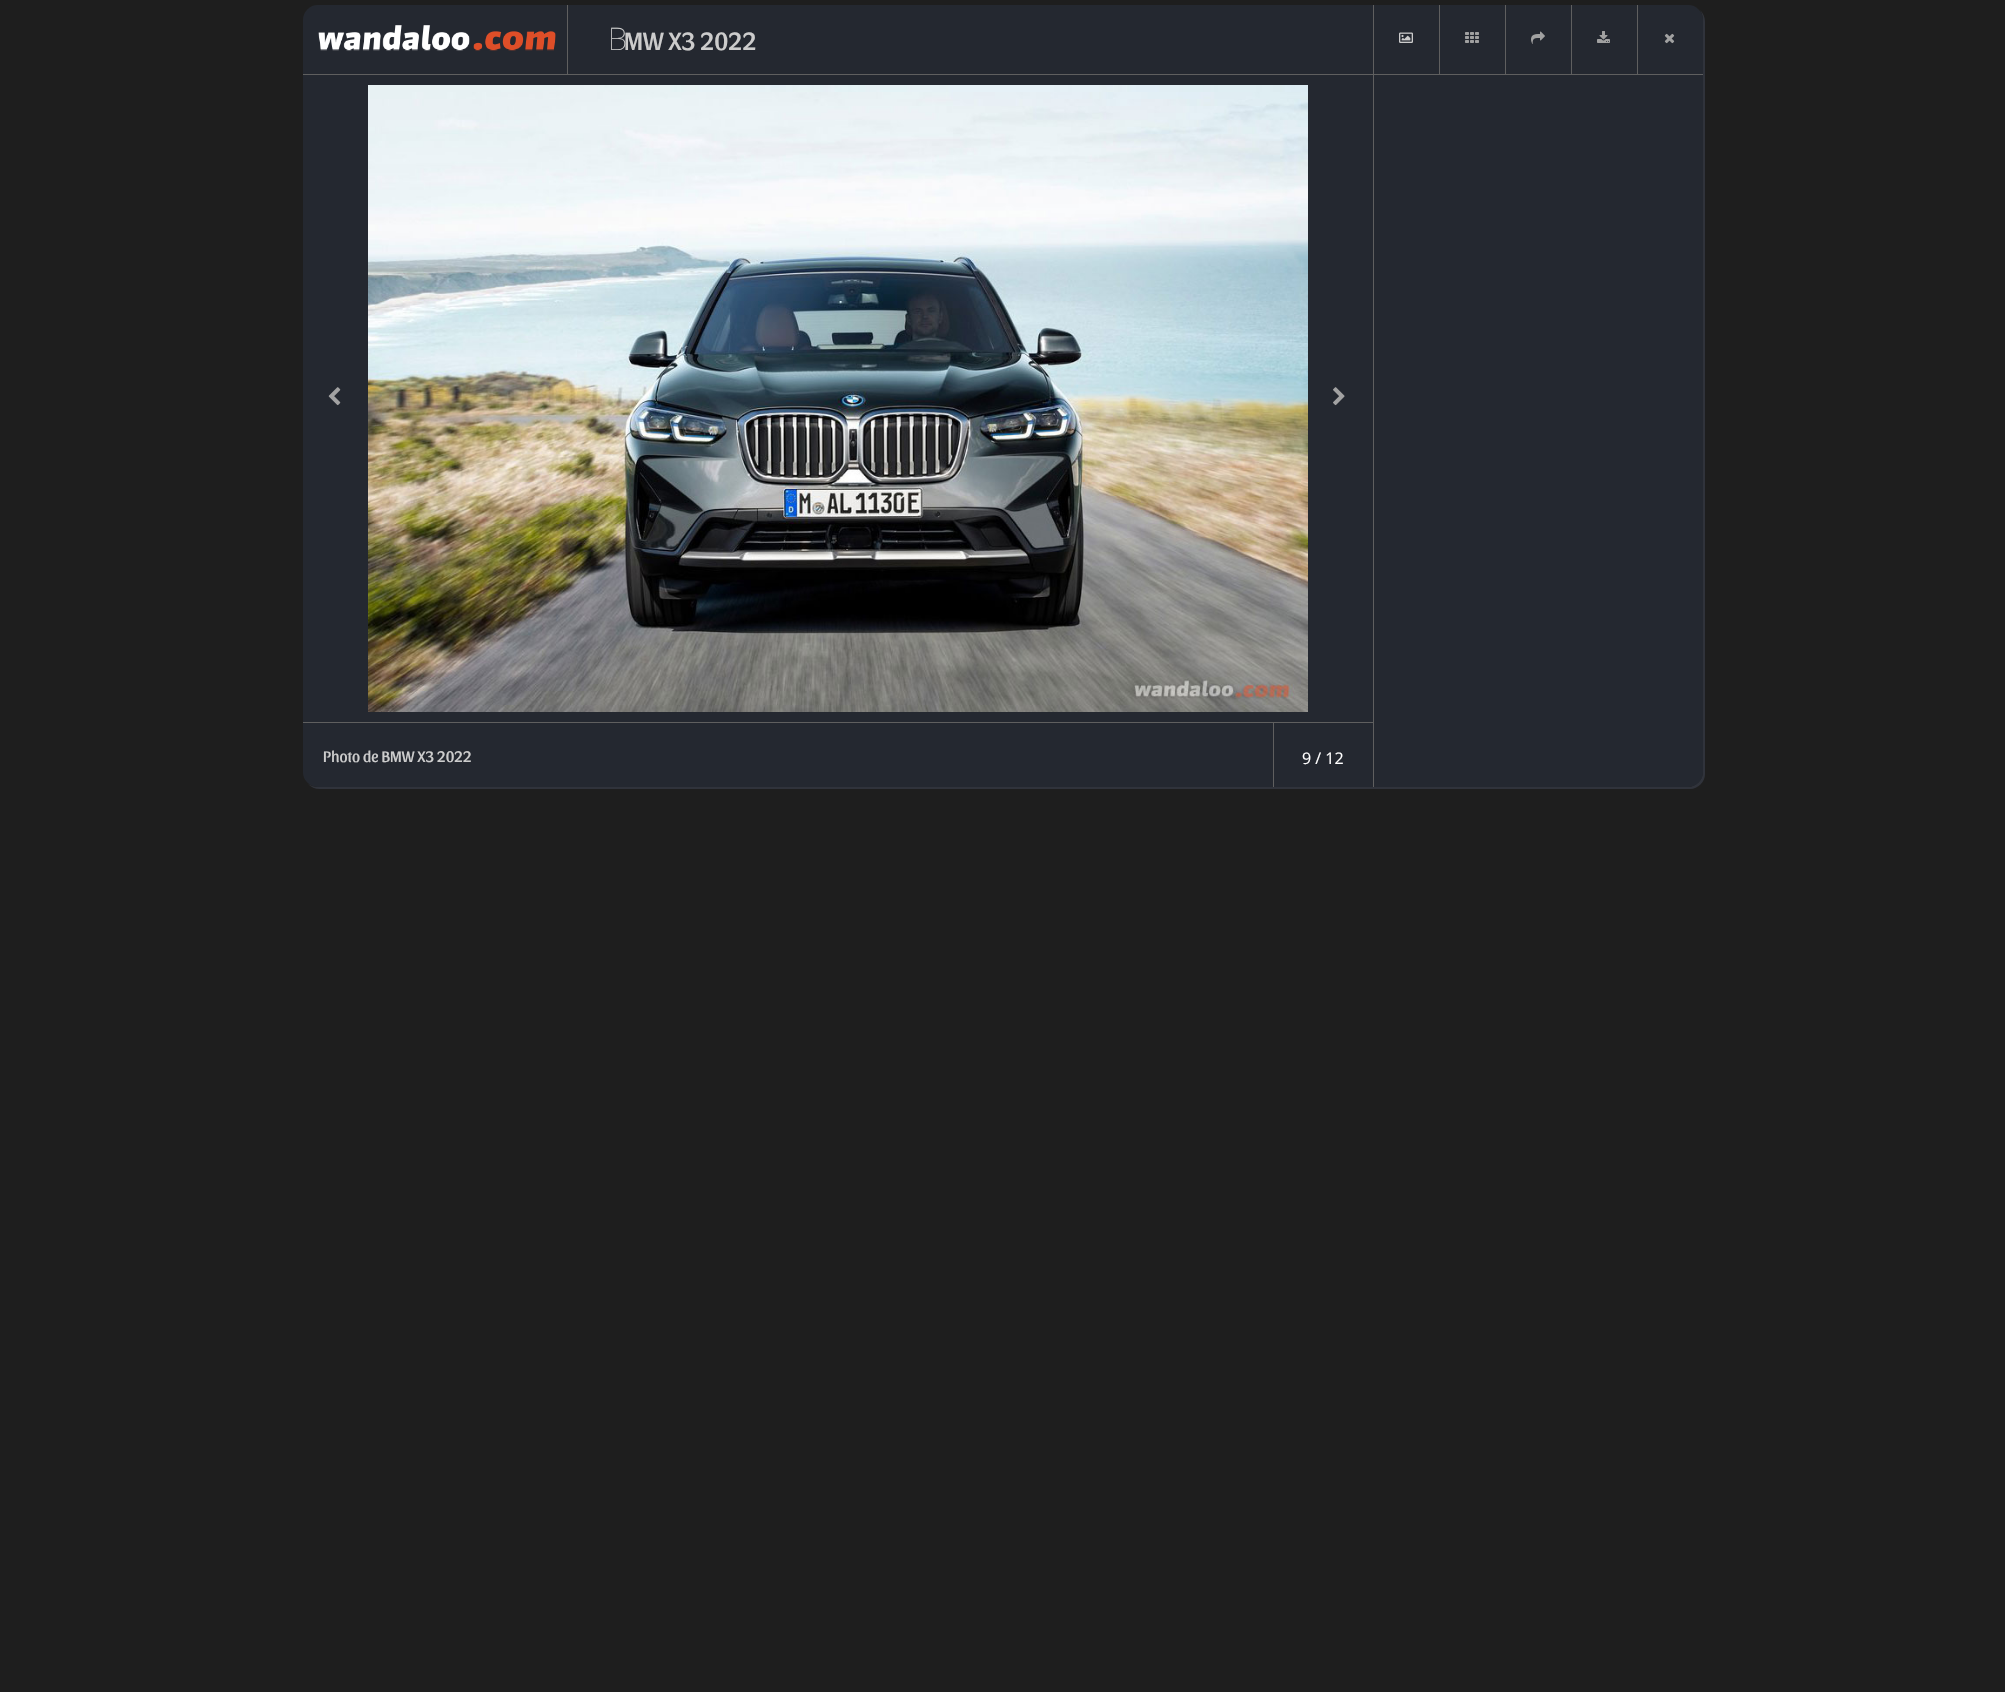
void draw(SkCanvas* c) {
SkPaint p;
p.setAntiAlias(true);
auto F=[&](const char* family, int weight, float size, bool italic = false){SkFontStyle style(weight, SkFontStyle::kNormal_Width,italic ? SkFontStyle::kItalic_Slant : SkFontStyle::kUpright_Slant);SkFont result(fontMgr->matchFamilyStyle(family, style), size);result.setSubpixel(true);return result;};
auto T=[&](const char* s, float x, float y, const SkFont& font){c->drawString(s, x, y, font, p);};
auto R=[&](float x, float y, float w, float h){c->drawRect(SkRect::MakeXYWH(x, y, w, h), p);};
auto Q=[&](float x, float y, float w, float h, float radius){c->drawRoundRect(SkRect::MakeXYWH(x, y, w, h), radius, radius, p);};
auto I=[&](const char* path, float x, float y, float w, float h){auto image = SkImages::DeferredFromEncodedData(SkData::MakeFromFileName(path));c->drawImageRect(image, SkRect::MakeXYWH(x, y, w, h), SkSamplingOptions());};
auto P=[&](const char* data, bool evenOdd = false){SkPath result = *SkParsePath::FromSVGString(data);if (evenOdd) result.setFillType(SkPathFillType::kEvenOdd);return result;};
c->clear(0xff1e1e1e);
p.setColor(0xff30333b);
c->drawPath(P("M308 784c3 3 7 5 12 5h1370c8 0 15-7 15-15v-752c0-5-2-9-5-12c2 3 3 6 3 10v752c0 8-7 15-15 15h-1370c-4 0-7-1-10-3z"),p);
p.setColor(0xff242830);
Q(303,5,1400,782,15);
p.setColor(0xff5f5f5f);
R(1373,5,1,782);
R(303,74,1400,1);
R(567,5,1,69);
I("1.png",318,25,238,26);
auto f1 = F("Noto Sans",100,31);
p.setColor(0xffcccccc);
T("B",608,50,f1);
auto f2 = F("Sansita",400,26);
T("MW X3 2022",624,50,f2);
I("2.png",1399,32,14,11);
p.setColor(0xff5f5f5f);
R(1439,5,1,69);
I("3.png",1465,32,14,11);
R(1505,5,1,69);
I("4.png",1531,31,14,13);
R(1571,5,1,69);
I("5.png",1597,31,13,12);
R(1637,5,1,69);
I("6.png",1664,33,11,11);
I("7.png",328,387,13,19);
I("8.png",368,85,940,627);
I("9.png",1333,387,12,19);
R(303,722,1070,1);
auto f3 = F("Sansita",400,16);
p.setColor(0xffcccccc);
T("Photo de BMW X3 2022",323,762,f3);
p.setColor(0xff5f5f5f);
R(1273,723,1,64);
auto f4 = F("Open Sans",400,16);
p.setColor(0xffffffff);
T("9 / 12",1302,764,f4);
}
